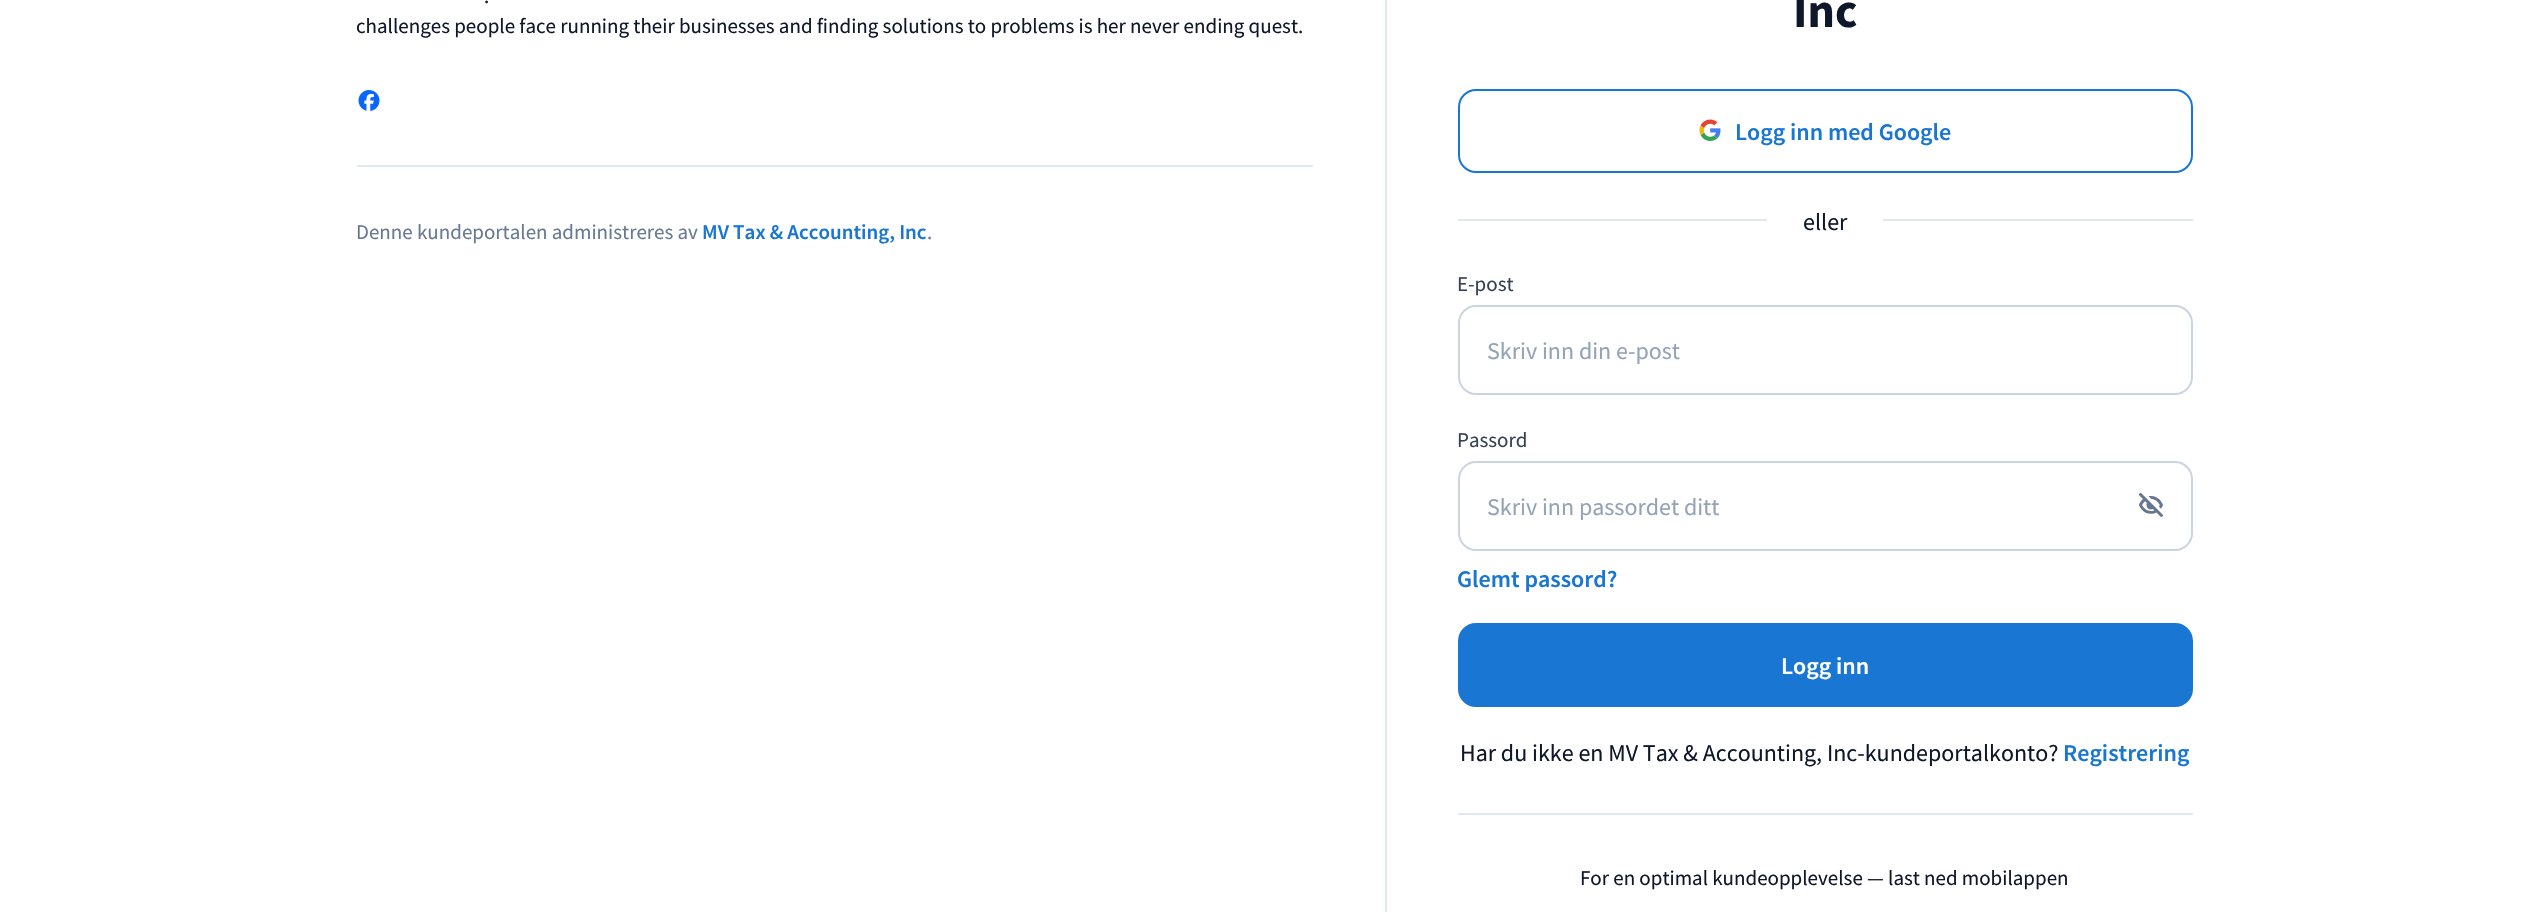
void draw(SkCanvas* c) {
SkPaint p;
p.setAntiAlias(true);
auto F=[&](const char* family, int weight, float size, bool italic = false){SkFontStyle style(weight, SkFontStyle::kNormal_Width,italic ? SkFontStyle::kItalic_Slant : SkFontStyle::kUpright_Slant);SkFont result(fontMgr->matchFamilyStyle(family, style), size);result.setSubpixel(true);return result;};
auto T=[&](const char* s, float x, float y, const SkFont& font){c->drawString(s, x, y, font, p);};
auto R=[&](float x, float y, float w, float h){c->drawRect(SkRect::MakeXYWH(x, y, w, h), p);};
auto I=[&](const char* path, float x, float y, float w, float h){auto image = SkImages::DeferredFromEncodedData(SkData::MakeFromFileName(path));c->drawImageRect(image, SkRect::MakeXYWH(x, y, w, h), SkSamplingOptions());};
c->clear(0xffffffff);
auto f1 = F("Source Sans Pro",400,21);
p.setColor(0xff0f172a);
T(".",484,3,f1);
T("challenges people face running their businesses and finding solutions to problems is her never ending quest.",356,33,f1);
I("1.png",358,90,22,21);
p.setColor(0xffe2e8f0);
R(357,165,956,2);
p.setColor(0xff697991);
T("Denne kundeportalen administreres av",356,239,f1);
auto f2 = F("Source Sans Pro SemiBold",600,21);
p.setColor(0xff1976d3);
T("MV Tax & Accounting, Inc",702,239,f2);
p.setColor(0xff697991);
T(".",927,239,f1);
p.setColor(0xffe2e8f0);
R(1385,0,2,912);
auto f3 = F("Source Sans Pro",700,48);
p.setColor(0xff0f172a);
T("Inc",1793,27,f3);
p.setStroke(true);
p.setStrokeWidth(2);
p.setColor(0xff1976d3);
c->drawRoundRect(SkRect::MakeXYWH(1459,90,733,82),17,17,p);
I("2.png",1699,119,22,22);
auto f4 = F("Source Sans Pro SemiBold",600,24);
p.setStroke(false);
T("Logg inn med Google",1735,140,f4);
p.setColor(0xffe2e8f0);
R(1458,219,309,2);
auto f5 = F("Source Sans Pro",400,24);
p.setColor(0xff0f172a);
T("eller",1803,230,f5);
p.setColor(0xffe2e8f0);
R(1883,219,310,2);
p.setColor(0xff334155);
T("E-post",1457,291,f1);
p.setStroke(true);
p.setColor(0xffcbd5e1);
c->drawRoundRect(SkRect::MakeXYWH(1459,306,733,88),17,17,p);
p.setStroke(false);
p.setColor(0xff94a3b8);
T("Skriv inn din e-post",1487,359,f5);
p.setColor(0xff334155);
T("Passord",1457,447,f1);
p.setStroke(true);
p.setColor(0xffcbd5e1);
c->drawRoundRect(SkRect::MakeXYWH(1459,462,733,88),17,17,p);
p.setStroke(false);
p.setColor(0xff94a3b8);
T("Skriv inn passordet ditt",1487,515,f5);
I("3.png",2139,493,24,24);
p.setColor(0xff1976d3);
T("Glemt passord?",1457,587,f4);
c->drawRoundRect(SkRect::MakeXYWH(1459,624,733,82),17,17,p);
p.setStroke(true);
c->drawRoundRect(SkRect::MakeXYWH(1459,624,733,82),17,17,p);
p.setStroke(false);
p.setColor(0xffffffff);
T("Logg inn",1781,674,f4);
p.setColor(0xff0f172a);
T("Har du ikke en MV Tax & Accounting, Inc-kundeportalkonto?",1460,761,f5);
p.setColor(0xff1976d3);
T("Registrering",2063,761,f4);
p.setColor(0xffe2e8f0);
R(1458,813,735,2);
p.setColor(0xff0f172a);
T("For en optimal kundeopplevelse — last ned mobilappen",1580,885,f1);
}
